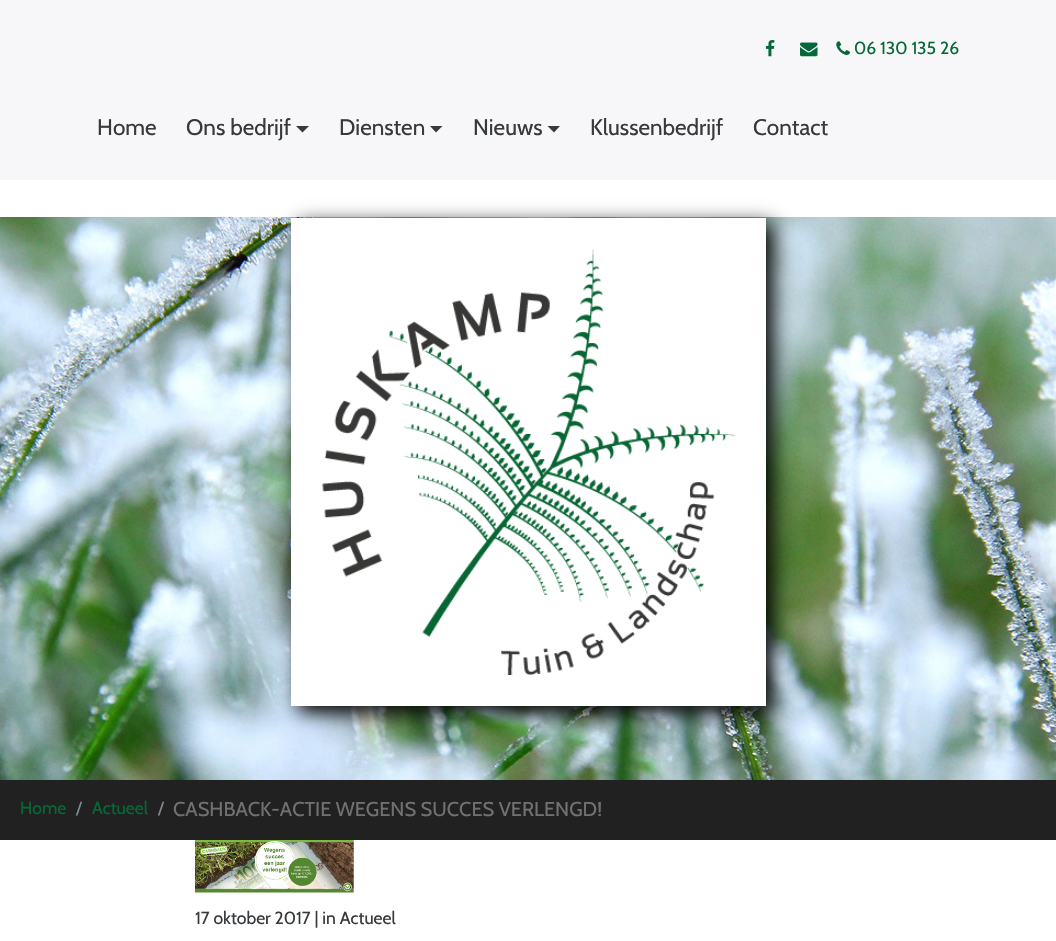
void draw(SkCanvas* c) {
SkPaint p;
p.setAntiAlias(true);
auto F=[&](const char* family, int weight, float size, bool italic = false){SkFontStyle style(weight, SkFontStyle::kNormal_Width,italic ? SkFontStyle::kItalic_Slant : SkFontStyle::kUpright_Slant);SkFont result(fontMgr->matchFamilyStyle(family, style), size);result.setSubpixel(true);return result;};
auto T=[&](const char* s, float x, float y, const SkFont& font){c->drawString(s, x, y, font, p);};
auto R=[&](float x, float y, float w, float h){c->drawRect(SkRect::MakeXYWH(x, y, w, h), p);};
auto I=[&](const char* path, float x, float y, float w, float h){auto image = SkImages::DeferredFromEncodedData(SkData::MakeFromFileName(path));c->drawImageRect(image, SkRect::MakeXYWH(x, y, w, h), SkSamplingOptions());};
auto P=[&](const char* data, bool evenOdd = false){SkPath result = *SkParsePath::FromSVGString(data);if (evenOdd) result.setFillType(SkPathFillType::kEvenOdd);return result;};
c->clear(0xffffffff);
p.setColor(0xfff7f7f9);
R(0,0,1056,180);
I("1.png",765,40,10,17);
I("2.png",800,42,18,15);
I("3.png",836,41,14,14);
auto f1 = F("Cabin",400,17.5);
p.setColor(0xff056839);
T("06 130 135 26",854,54,f1);
auto f2 = F("Cabin",400,22.5);
p.setColor(0xff373a3c);
T("Home",97,135,f2);
T("Ons bedrijf",186,135,f2);
c->drawPath(P("M296 126h13l-6.5 6.5z"),p);
T("Diensten",339,135,f2);
c->drawPath(P("M430 126h12.5l-6.5 6.5z"),p);
T("Nieuws",473,135,f2);
c->drawPath(P("M547.5 126h12.5l-6 6.5z"),p);
T("Klussenbedrijf",590,135,f2);
T("Contact",753,135,f2);
I("4.png",0,217,1056,563);
p.setColor(0xff000000);
p.setMaskFilter(SkMaskFilter::MakeBlur(kNormal_SkBlurStyle, 9.5));
c->drawRect(SkRect::MakeXYWH(298,224,475,489),p);
p.setMaskFilter(nullptr);
p.setColor(0xffffffff);
R(291,218,475,488);
I("5.png",322,249,413,426);
p.setColor(0xff212121);
R(0,780,1056,60);
p.setColor(0xff056839);
T("Home",20,814,f1);
p.setColor(0xff818a91);
T("/",76,814,f1);
p.setColor(0xff056839);
T("Actueel",92,814,f1);
p.setColor(0xff818a91);
T("/",158,814,f1);
auto f3 = F("Cabin",400,20);
p.setColor(0xff717171);
T("CASHBACK-ACTIE WEGENS SUCCES VERLENGD!",173,816,f3);
I("6.png",195,840,159,53);
p.setColor(0xff373a3c);
T("17 oktober 2017 | in Actueel",195,924,f1);
}
